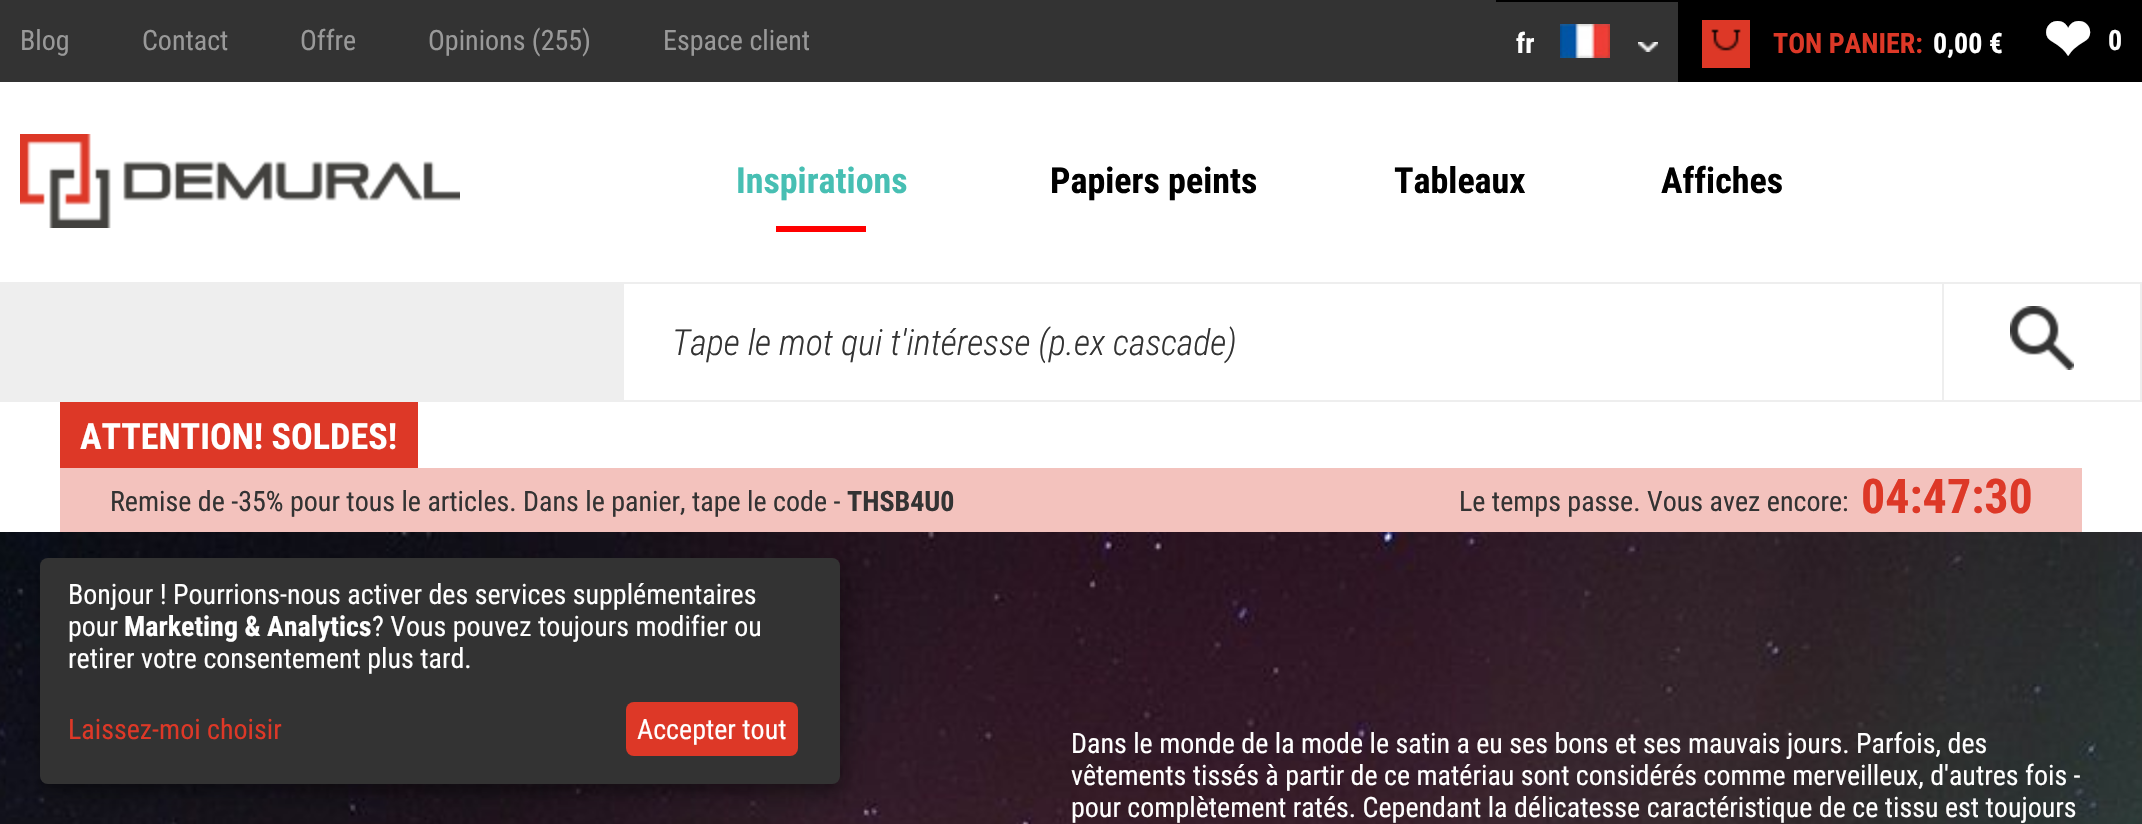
void draw(SkCanvas* c) {
SkPaint p;
p.setAntiAlias(true);
auto F=[&](const char* family, int weight, float size, bool italic = false){SkFontStyle style(weight, SkFontStyle::kNormal_Width,italic ? SkFontStyle::kItalic_Slant : SkFontStyle::kUpright_Slant);SkFont result(fontMgr->matchFamilyStyle(family, style), size);result.setSubpixel(true);return result;};
auto T=[&](const char* s, float x, float y, const SkFont& font){c->drawString(s, x, y, font, p);};
auto R=[&](float x, float y, float w, float h){c->drawRect(SkRect::MakeXYWH(x, y, w, h), p);};
auto Q=[&](float x, float y, float w, float h, float radius){c->drawRoundRect(SkRect::MakeXYWH(x, y, w, h), radius, radius, p);};
auto I=[&](const char* path, float x, float y, float w, float h){auto image = SkImages::DeferredFromEncodedData(SkData::MakeFromFileName(path));c->drawImageRect(image, SkRect::MakeXYWH(x, y, w, h), SkSamplingOptions());};
c->clear(0xffffffff);
p.setColor(0xff333333);
R(0,0,1496,82);
auto f1 = F("Roboto Condensed",400,28);
p.setColor(0xff999999);
T("Blog",20,50,f1);
T("Contact",142,50,f1);
T("Offre",300,50,f1);
T("Opinions (255)",428,50,f1);
T("Espace client",663,50,f1);
p.setColor(0xff000000);
R(1496,0,646,82);
p.setColor(0xff333333);
R(1496,2,182,80);
auto f2 = F("Roboto Condensed",700,28);
p.setColor(0xffffffff);
T("fr",1516,53,f2);
I("1.png",1560,24,50,34);
I("2.png",1638,42,20,10);
I("3.png",1702,20,48,48);
p.setColor(0xffdd3827);
T("TON PANIER:",1773,53,f2);
p.setColor(0xffffffff);
T("0,00 €",1933,53,f2);
auto f3 = F("DejaVu Sans",700,58);
T("❤",2043,60,f3);
T("0",2108,50,f2);
I("4.png",20,134,440,94);
auto f4 = F("Roboto Condensed",700,36);
p.setColor(0xff47bfb3);
T("Inspirations",736,193,f4);
p.setColor(0xffff0000);
R(776,226,90,6);
p.setColor(0xff000000);
T("Papiers peints",1050,193,f4);
T("Tableaux",1394,193,f4);
T("Affiches",1661,193,f4);
p.setColor(0xffeeeeee);
R(0,282,622,120);
R(622,282,1320,2);
R(622,400,1320,2);
R(622,282,2,120);
auto f5 = F("Roboto Condensed",300,36,true);
p.setColor(0xff333333);
T("Tape le mot qui t'intéresse (p.ex cascade)",672,355,f5);
p.setStroke(true);
p.setStrokeWidth(2);
p.setColor(0xffeeeeee);
c->drawRect(SkRect::MakeXYWH(1943,283,198,118),p);
I("5.png",2010,306,64,64);
p.setStroke(false);
p.setColor(0xffdd3827);
R(60,402,358,66);
auto f6 = F("Roboto Condensed",700,36.1);
p.setColor(0xffffffff);
T("ATTENTION! SOLDES!",80,449,f6);
p.setColor(0xfff3c2bd);
R(60,468,2022,64);
p.setColor(0xff333333);
T("Remise de -35% pour tous le articles. Dans le panier, tape le code -",110,511,f1);
T("THSB4U0",847,511,f2);
T("Le temps passe. Vous avez encore:",1459,511,f1);
auto f7 = F("Roboto Condensed",700,48);
p.setColor(0xffdd3827);
T("04:47:30",1861,513,f7);
I("6.png",0,532,2142,292);
p.setColor(0x30000000);
p.setMaskFilter(SkMaskFilter::MakeBlur(kNormal_SkBlurStyle, 10));
c->drawRoundRect(SkRect::MakeXYWH(50,568,800,226),8,8,p);
p.setMaskFilter(nullptr);
p.setColor(0x33000000);
p.setMaskFilter(SkMaskFilter::MakeBlur(kNormal_SkBlurStyle, 6));
c->drawRoundRect(SkRect::MakeXYWH(40,566,800,226),8,8,p);
p.setMaskFilter(nullptr);
p.setColor(0xff333333);
Q(40,558,800,226,8);
p.setColor(0xffffffff);
T("Bonjour ! Pourrions-nous activer des services supplémentaires",68,604,f1);
T("pour",68,636,f1);
T("Marketing & Analytics",124,636,f2);
T("? Vous pouvez toujours modifier ou",372,636,f1);
T("retirer votre consentement plus tard.",68,668,f1);
p.setColor(0xffdd3827);
T("Laissez-moi choisir",68,739,f1);
Q(626,702,172,54,8);
p.setColor(0xffffffff);
T("Accepter tout",637,739,f1);
T("Dans le monde de la mode le satin a eu ses bons et ses mauvais jours. Parfois, des",1071,753,f1);
T("vêtements tissés à partir de ce matériau sont considérés comme merveilleux, d'autres fois -",1071,785,f1);
T("pour complètement ratés. Cependant la délicatesse caractéristique de ce tissu est toujours",1071,817,f1);
}
